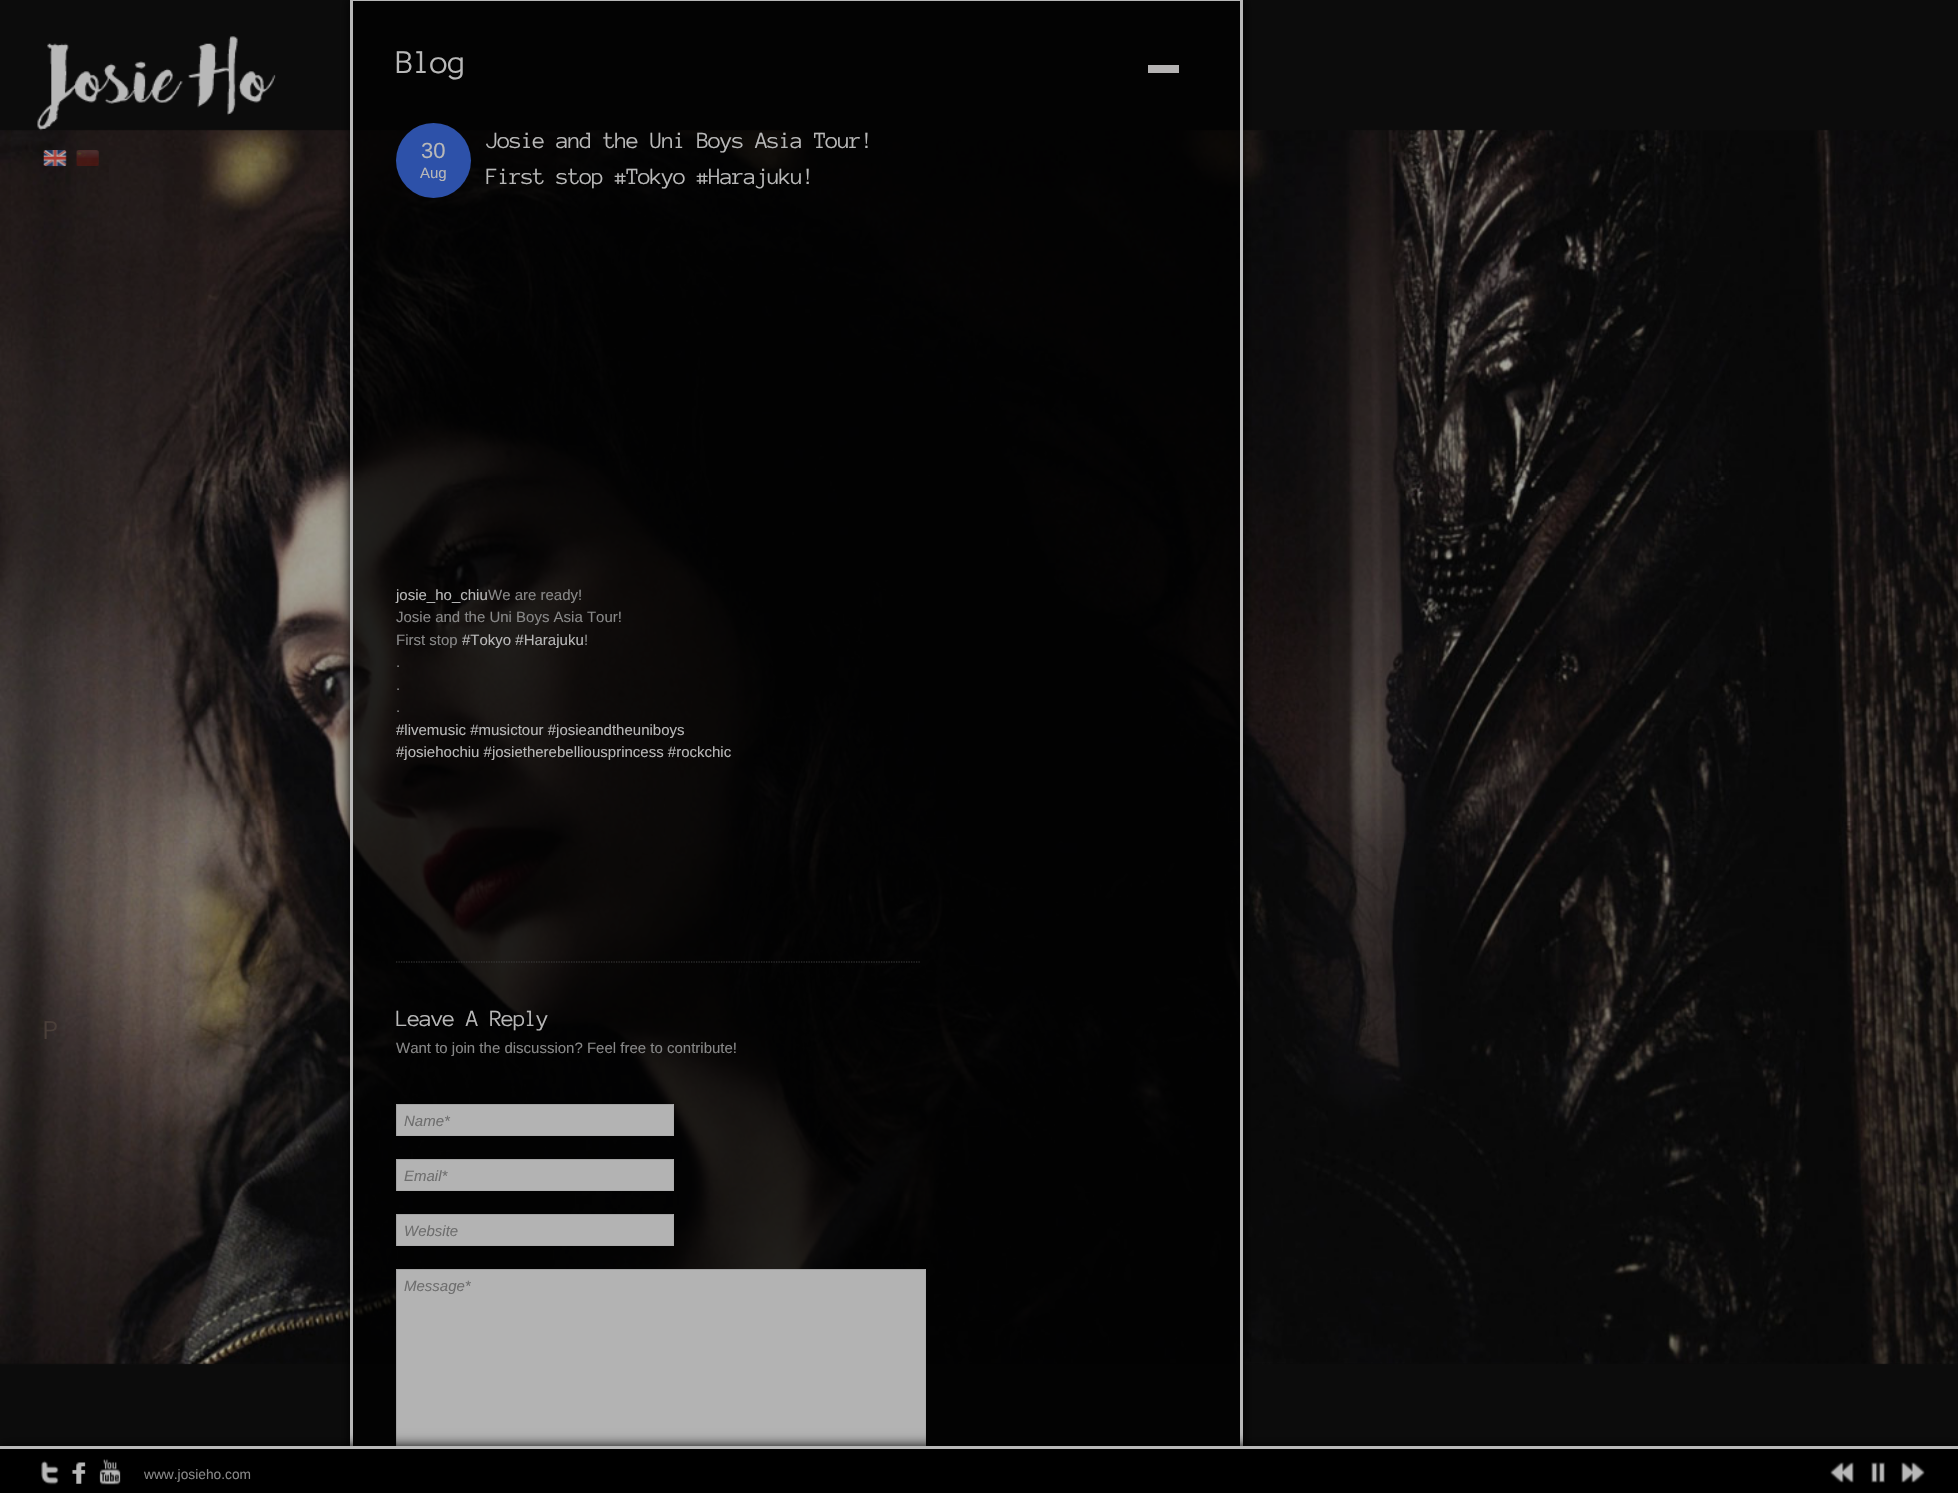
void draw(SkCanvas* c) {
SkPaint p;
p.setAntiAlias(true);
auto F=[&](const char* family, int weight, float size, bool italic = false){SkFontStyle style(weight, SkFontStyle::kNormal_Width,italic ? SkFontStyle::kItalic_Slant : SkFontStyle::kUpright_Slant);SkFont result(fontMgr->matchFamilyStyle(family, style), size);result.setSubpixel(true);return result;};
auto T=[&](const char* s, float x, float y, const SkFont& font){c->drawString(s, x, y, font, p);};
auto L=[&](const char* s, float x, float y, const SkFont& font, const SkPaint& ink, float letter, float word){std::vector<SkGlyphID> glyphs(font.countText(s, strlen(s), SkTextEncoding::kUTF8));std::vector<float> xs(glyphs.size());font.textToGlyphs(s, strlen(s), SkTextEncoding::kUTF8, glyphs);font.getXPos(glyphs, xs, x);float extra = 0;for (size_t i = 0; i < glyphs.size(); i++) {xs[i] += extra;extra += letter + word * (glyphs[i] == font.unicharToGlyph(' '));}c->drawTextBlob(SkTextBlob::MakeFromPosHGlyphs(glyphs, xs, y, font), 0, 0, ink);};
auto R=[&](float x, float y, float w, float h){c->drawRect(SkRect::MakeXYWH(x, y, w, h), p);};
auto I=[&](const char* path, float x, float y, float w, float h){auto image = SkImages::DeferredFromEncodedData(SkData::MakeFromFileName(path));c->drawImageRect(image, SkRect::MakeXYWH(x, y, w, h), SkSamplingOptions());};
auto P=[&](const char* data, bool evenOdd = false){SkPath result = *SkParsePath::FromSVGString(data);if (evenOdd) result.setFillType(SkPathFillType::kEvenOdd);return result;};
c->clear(0xff0c0c0c);
I("10.png",0,129,1958,1236);
I("1.png",37,36,239,95);
c->save();
c->clipPath(P("M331 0h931v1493h-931zm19-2h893v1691h-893z",true),true);
p.setColor(0xff000000);
p.setMaskFilter(SkMaskFilter::MakeBlur(kNormal_SkBlurStyle, 6));
c->drawRect(SkRect::MakeXYWH(350,-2,893,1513),p);
p.setMaskFilter(nullptr);
c->restore();
p.setColor(0xcc000000);
R(353,1,887,1445);
p.setStroke(true);
p.setStrokeWidth(3);
p.setColor(0xffb8b8b8);
c->drawRect(SkRect::MakeXYWH(351.5,-.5,890,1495),p);
auto f1 = F("Anonymous Pro",400,34);
p.setStroke(false);
L("Blog",396,73,f1,p,-1.25,0);
p.setColor(0xffb5b3b3);
R(1148,65,31,8);
p.setColor(0xff2d51a9);
c->drawCircle(433.5,160.5,37.5,p);
auto f2 = F("Liberation Sans",400,22);
p.setColor(0xffb8b8b8);
T("30",421,158,f2);
auto f3 = F("Liberation Sans",400,15);
T("Aug",420,178,f3);
auto f4 = F("Anonymous Pro",400,23.75);
L("Josie and the Uni Boys Asia Tour!",486,148,f4,p,-1.25,0);
L("First stop #Tokyo #Harajuku!",486,184,f4,p,-1.25,0);
T("josie_ho_chiu",396,600,f3);
p.setColor(0xff878787);
T("We are ready!",488,600,f3);
T("Josie and the Uni Boys Asia Tour!",396,622,f3);
T("First stop",396,645,f3);
p.setColor(0xffb8b8b8);
T("#Tokyo #Harajuku",462,645,f3);
p.setColor(0xff878787);
T("!",584,645,f3);
T(".",396,667,f3);
T(".",396,690,f3);
T(".",396,712,f3);
p.setColor(0xffb8b8b8);
T("#livemusic #musictour #josieandtheuniboys",396,735,f3);
T("#josiehochiu #josietherebelliousprincess #rockchic",396,757,f3);
p.setStroke(true);
p.setStrokeWidth(1.2);
p.setColor(0xff3d3d3d);
p.setPathEffect(SkDashPathEffect::Make({{1.25f,1.25f}}, 0));
c->drawPath(P("M396 962h525"),p);
p.setPathEffect(nullptr);
p.setStroke(false);
p.setColor(0xffb8b8b8);
L("Leave A Reply",396,1026,f4,p,-1.25,0);
p.setColor(0xff878787);
T("Want to join the discussion? Feel free to contribute!",396,1053,f3);
p.setColor(0xffb3b3b3);
R(397,1105,276,30);
p.setColor(0xffa2a2a2);
R(396,1104,278,1);
p.setColor(0xffadadad);
R(673,1104,1,32);
R(396,1135,278,1);
p.setColor(0xffa2a2a2);
R(396,1104,1,32);
auto f5 = F("Liberation Sans",400,15,true);
p.setColor(0xff6e6e6e);
T("Name*",404,1126,f5);
p.setColor(0xffb3b3b3);
R(397,1160,276,30);
p.setColor(0xffa2a2a2);
R(396,1159,278,1);
p.setColor(0xffadadad);
R(673,1159,1,32);
R(396,1190,278,1);
p.setColor(0xffa2a2a2);
R(396,1159,1,32);
p.setColor(0xff6e6e6e);
T("Email*",404,1181,f5);
p.setColor(0xffb3b3b3);
R(397,1215,276,30);
p.setColor(0xffa2a2a2);
R(396,1214,278,1);
p.setColor(0xffadadad);
R(673,1214,1,32);
R(396,1245,278,1);
p.setColor(0xffa2a2a2);
R(396,1214,1,32);
p.setColor(0xff6e6e6e);
T("Website",404,1236,f5);
p.setColor(0xffb3b3b3);
R(397,1270,528,176);
p.setColor(0xffa2a2a2);
R(396,1269,530,1);
p.setColor(0xffadadad);
R(925,1269,1,177);
p.setColor(0xffa2a2a2);
R(396,1269,1,177);
p.setColor(0xff6e6e6e);
T("Message*",404,1291,f5);
I("2.png",43,150,24,17);
I("3.png",76,150,23,16);
auto f6 = F("Anonymous Pro",400,28);
p.setColor(0xff4a3f39);
L("P",44,1039,f6,p,-1.25,0);
p.setColor(0xff000000);
p.setMaskFilter(SkMaskFilter::MakeBlur(kNormal_SkBlurStyle, 6));
c->drawRect(SkRect::MakeXYWH(0,1446,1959,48),p);
p.setMaskFilter(nullptr);
R(0,1449,1958,44);
p.setColor(0xffb8b8b8);
R(0,1446,1958,3);
I("4.png",41,1460,18,25);
I("5.png",71,1462,15,22);
I("6.png",99,1459,22,26);
auto f7 = F("Liberation Sans",400,13.75);
p.setColor(0xff878787);
T("www.josieho.com",144,1479,f7);
I("7.png",1830,1462,24,21);
I("8.png",1871,1462,14,21);
I("9.png",1901,1462,24,21);
}
